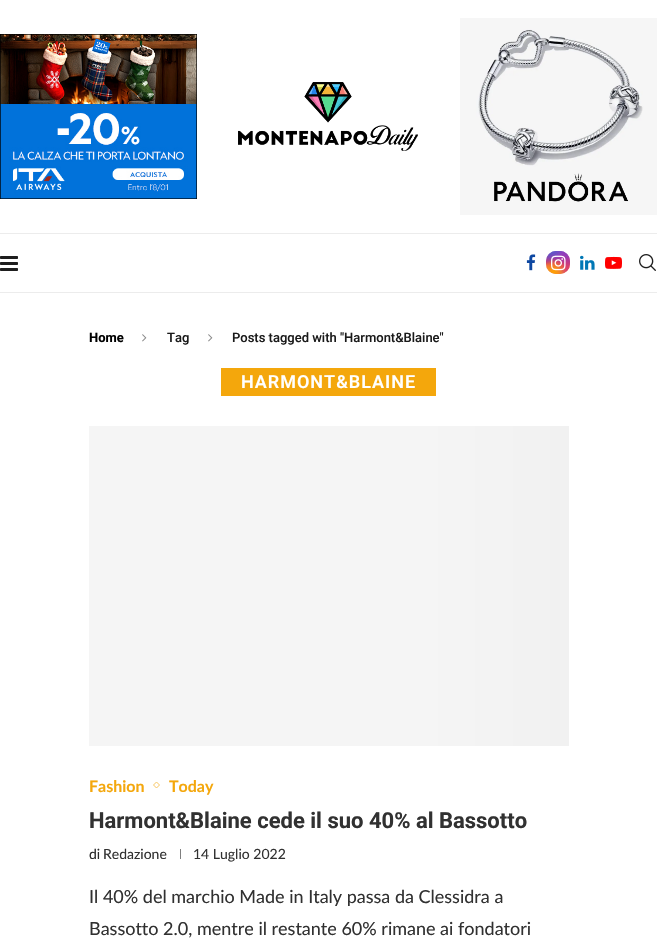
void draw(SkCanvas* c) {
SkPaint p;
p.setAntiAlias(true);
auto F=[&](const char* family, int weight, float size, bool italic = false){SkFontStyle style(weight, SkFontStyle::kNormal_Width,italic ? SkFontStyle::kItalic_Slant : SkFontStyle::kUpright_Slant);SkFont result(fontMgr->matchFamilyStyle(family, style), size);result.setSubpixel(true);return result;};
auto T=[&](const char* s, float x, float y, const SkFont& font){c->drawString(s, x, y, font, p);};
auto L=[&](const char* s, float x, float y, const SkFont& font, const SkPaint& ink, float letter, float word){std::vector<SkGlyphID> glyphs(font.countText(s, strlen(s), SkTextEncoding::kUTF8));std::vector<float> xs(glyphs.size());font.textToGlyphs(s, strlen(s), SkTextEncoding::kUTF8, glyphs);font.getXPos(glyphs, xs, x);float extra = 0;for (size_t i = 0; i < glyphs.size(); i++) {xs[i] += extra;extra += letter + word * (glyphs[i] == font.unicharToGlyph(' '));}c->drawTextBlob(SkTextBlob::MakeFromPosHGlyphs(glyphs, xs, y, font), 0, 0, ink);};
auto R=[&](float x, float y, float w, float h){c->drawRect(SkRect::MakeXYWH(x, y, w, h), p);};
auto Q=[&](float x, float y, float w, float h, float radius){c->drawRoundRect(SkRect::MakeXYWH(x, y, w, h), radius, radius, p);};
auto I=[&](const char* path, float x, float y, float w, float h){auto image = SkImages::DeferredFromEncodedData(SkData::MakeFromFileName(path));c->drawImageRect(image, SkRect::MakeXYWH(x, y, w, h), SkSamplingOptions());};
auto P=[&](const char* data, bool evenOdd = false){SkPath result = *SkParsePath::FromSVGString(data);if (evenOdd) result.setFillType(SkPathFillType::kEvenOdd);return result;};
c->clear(0xffffffff);
I("1.png",0,34,197,165);
I("2.png",238,82,180,69);
I("3.png",460,18,197,197);
p.setColor(0xffececec);
R(0,233,657,1);
R(0,292,657,1);
I("4.png",0,256,18,15);
I("5.png",526,254,10,17);
{
const SkColor colors[] = {0xff6559ca,0xffbc318f,0xffe33f5f,0xfff77638,0xfffec66d};
const float stops[] = {0,.3,.5,.7,1};
const SkPoint ends[] = {{558,251}, {558,274}};
p.setShader(SkGradientShader::MakeLinear(ends, colors, stops, 5, SkTileMode::kClamp));
p.setAlpha(255);
}
Q(546,251,24,23,10);
{
const SkColor colors[] = {0xffd43178,0x00d43178};
const float stops[] = {0,1};
SkMatrix m = SkMatrix::Translate(570,274).preScale(34,33);
p.setShader(SkGradientShader::MakeRadial({0, 0}, 1, colors, stops, 2, SkTileMode::kClamp, 0, &m));
p.setAlpha(255);
}
Q(546,251,24,23,10);
{
const SkColor colors[] = {0xff8f44c7,0x008f44c7};
const float stops[] = {0,.5};
SkMatrix m = SkMatrix::Translate(560,246).preScale(20,39);
p.setShader(SkGradientShader::MakeRadial({0, 0}, 1, colors, stops, 2, SkTileMode::kClamp, 0, &m));
p.setAlpha(255);
}
Q(546,251,24,23,10);
{
const SkColor colors[] = {0xff893dc2,0x00893dc2};
const float stops[] = {0,.5};
SkMatrix m = SkMatrix::Translate(570,251).preScale(34,33);
p.setShader(SkGradientShader::MakeRadial({0, 0}, 1, colors, stops, 2, SkTileMode::kClamp, 0, &m));
p.setAlpha(255);
}
Q(546,251,24,23,10);
{
const SkColor colors[] = {0xff5258cf,0x005258cf};
const float stops[] = {0,.5};
SkMatrix m = SkMatrix::Translate(551,240).preScale(27,49);
p.setShader(SkGradientShader::MakeRadial({0, 0}, 1, colors, stops, 2, SkTileMode::kClamp, 0, &m));
p.setAlpha(255);
}
Q(546,251,24,23,10);
{
const SkColor colors[] = {0xff5258cf,0x005258cf};
const float stops[] = {0,.5};
SkMatrix m = SkMatrix::Translate(546,245).preScale(34,41);
p.setShader(SkGradientShader::MakeRadial({0, 0}, 1, colors, stops, 2, SkTileMode::kClamp, 0, &m));
p.setAlpha(255);
}
Q(546,251,24,23,10);
{
const SkColor colors[] = {0xffefa11c,0x00efa11c};
const float stops[] = {0,.5};
p.setShader(SkGradientShader::MakeRadial({546,283}, 40, colors, stops, 2, SkTileMode::kClamp));
p.setAlpha(255);
}
Q(546,251,24,23,10);
{
const SkColor colors[] = {0xffffa100,0x00ffa100};
const float stops[] = {0,.5};
p.setShader(SkGradientShader::MakeRadial({554,272}, 26, colors, stops, 2, SkTileMode::kClamp));
p.setAlpha(255);
}
Q(546,251,24,23,10);
I("6.png",551,255,15,16);
I("7.png",580,255,15,15);
I("8.png",605,256,17,13);
I("9.png",639,254,17,17);
auto f1 = F("Roboto",700,13);
p.setShader(nullptr);
p.setColor(0xff000000);
T("Home",89,342,f1);
I("10.png",142,334,5,8);
auto f2 = F("Roboto",500,13);
p.setColor(0xff1a1a1a);
T("Tag",167,342,f2);
I("10.png",208,334,5,8);
T("Posts tagged with \"Harmont&Blaine\"",232,342,f2);
p.setColor(0xfff4a70c);
R(221,368,215,28);
auto f3 = F("Roboto",600,18);
p.setColor(0xffffffff);
L("HARMONT&BLAINE",241,388,f3,p,1,0);
{
const SkColor colors[] = {0xfff5f5f5,0xffefefef,0xfff5f5f5,0xfff5f5f5};
const float stops[] = {0,.15,.4,1};
const SkPoint ends[] = {{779,586}, {-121,586}};
p.setShader(SkGradientShader::MakeLinear(ends, colors, stops, 4, SkTileMode::kClamp));
p.setAlpha(255);
}
R(89,426,480,320);
auto f4 = F("Lato",700,16);
p.setShader(nullptr);
p.setColor(0xfff4a70c);
T("Fashion",89,792,f4);
p.setStroke(true);
p.setStrokeWidth(1);
p.setColor(0xfff8c661);
c->drawPath(P("M156.5 782l3 3l-3 3l-3-3z"),p);
p.setStroke(false);
p.setColor(0xfff4a70c);
T("Today",169,792,f4);
auto f5 = F("Roboto",700,22);
p.setColor(0xff313131);
T("Harmont&Blaine cede il suo 40% al Bassotto",89,828,f5);
auto f6 = F("Lato",400,14);
p.setColor(0xff2a2a2a);
T("di",89,859,f6);
p.setColor(0xff313131);
T("Redazione",103,859,f6);
p.setColor(0xff7f7f7f);
R(180,849,1,10);
p.setColor(0xff313131);
T("14 Luglio 2022",193,859,f6);
auto f7 = F("Lato",400,18);
T("Il 40% del marchio Made in Italy passa da Clessidra a",89,903,f7);
T("Bassotto 2.0, mentre il restante 60% rimane ai fondatori",89,935,f7);
}
